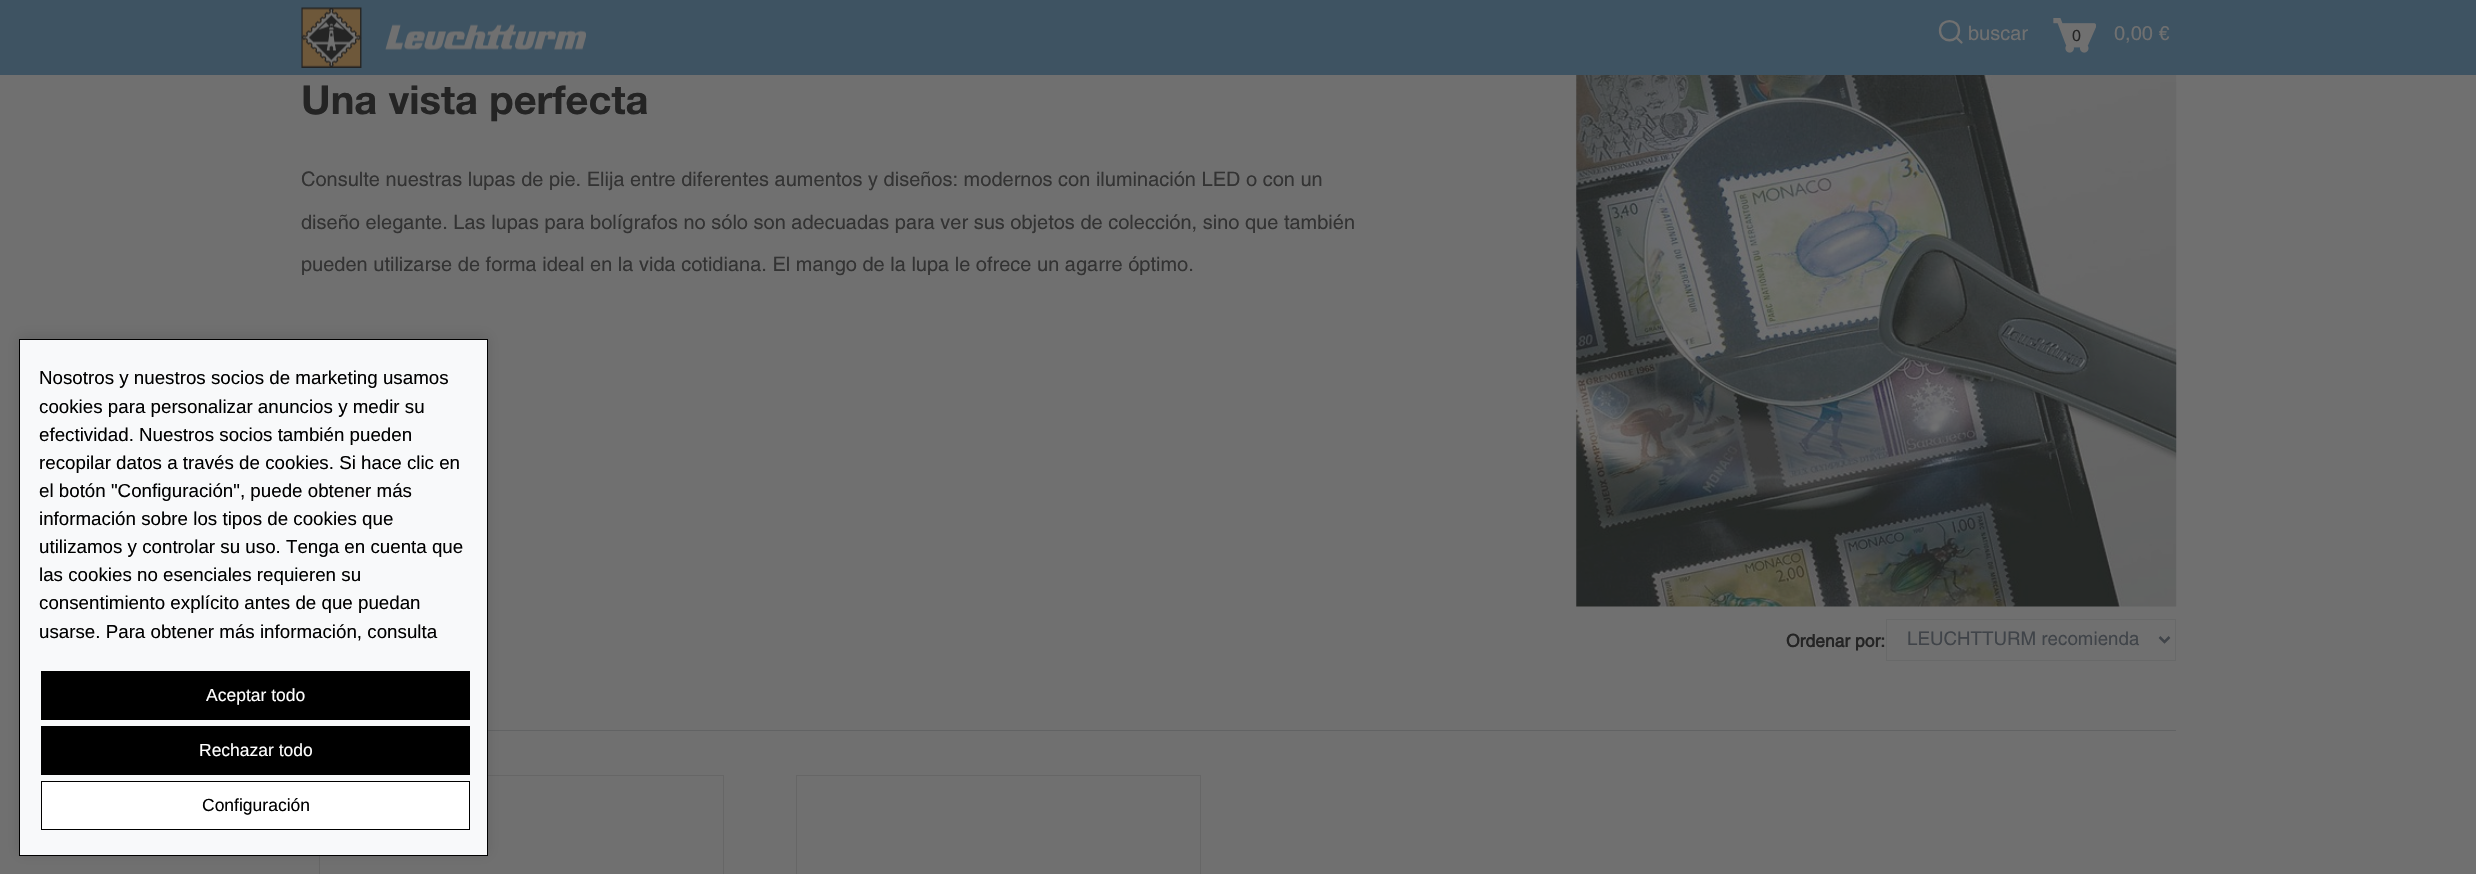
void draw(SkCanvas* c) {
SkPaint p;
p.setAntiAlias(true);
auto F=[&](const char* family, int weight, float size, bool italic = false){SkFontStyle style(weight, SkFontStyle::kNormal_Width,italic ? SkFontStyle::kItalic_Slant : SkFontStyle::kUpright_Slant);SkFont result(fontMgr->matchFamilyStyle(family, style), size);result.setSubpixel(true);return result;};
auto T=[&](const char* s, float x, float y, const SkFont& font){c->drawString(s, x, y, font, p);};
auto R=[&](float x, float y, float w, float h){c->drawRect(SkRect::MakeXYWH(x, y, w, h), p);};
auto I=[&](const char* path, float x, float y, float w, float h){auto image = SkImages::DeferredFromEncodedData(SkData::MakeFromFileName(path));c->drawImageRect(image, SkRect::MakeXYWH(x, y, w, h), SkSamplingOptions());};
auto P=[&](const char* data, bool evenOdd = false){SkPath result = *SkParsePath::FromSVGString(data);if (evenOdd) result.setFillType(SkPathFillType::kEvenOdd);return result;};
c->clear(0xff707070);
p.setColor(0xff3e5362);
R(0,0,2476,75);
I("1.png",301,7,285,61);
p.setStroke(true);
p.setStrokeWidth(2.3);
p.setStrokeCap(SkPaint::kRound_Cap);
p.setColor(0xff707070);
c->drawPath(P("M1961.5 42.5l-5-5m2.5-7c0 13-19 13-19 0c0-12.5 19-12.5 19 0z"),p);
auto f1 = F("Helvetica",400,20);
p.setStroke(false);
T("buscar",1968,40,f1);
I("2.png",2053,18,43,35);
T("0,00 €",2114,40,f1);
auto f2 = F("Helvetica",400,16);
p.setColor(0xff242424);
T("0",2072,41,f2);
p.setColor(0xff626364);
R(488,730,1688,1);
p.setStroke(true);
p.setStrokeWidth(1);
p.setStrokeCap(SkPaint::kButt_Cap);
p.setColor(0xff666666);
c->drawRect(SkRect::MakeXYWH(319.5,775.5,404,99),p);
p.setStroke(false);
p.setColor(0x1a000000);
p.setMaskFilter(SkMaskFilter::MakeBlur(kNormal_SkBlurStyle, 6));
c->drawRect(SkRect::MakeXYWH(19,336,469,518),p);
p.setMaskFilter(nullptr);
p.setColor(0xfff8f9fa);
c->drawRect(SkRect::MakeXYWH(19.5,339.5,468,516),p);
p.setStroke(true);
p.setColor(0xff000000);
c->drawRect(SkRect::MakeXYWH(19.5,339.5,468,516),p);
auto f3 = F("Liberation Sans",400,18.75);
p.setStroke(false);
T("Nosotros y nuestros socios de marketing usamos",39,384,f3);
T("cookies para personalizar anuncios y medir su",39,413,f3);
T("efectividad. Nuestros socios también pueden",39,441,f3);
T("recopilar datos a través de cookies. Si hace clic en",39,469,f3);
T("el botón \"Configuración\", puede obtener más",39,497,f3);
T("información sobre los tipos de cookies que",39,525,f3);
T("utilizamos y controlar su uso. Tenga en cuenta que",39,553,f3);
T("las cookies no esenciales requieren su",39,581,f3);
T("consentimiento explícito antes de que puedan",39,609,f3);
T("usarse. Para obtener más información, consulta",39,638,f3);
R(41,671,429,49);
auto f4 = F("Liberation Sans",400,17.5);
p.setColor(0xffffffff);
T("Aceptar todo",206,701,f4);
p.setColor(0xff000000);
R(41,726,429,49);
p.setColor(0xffffffff);
T("Rechazar todo",199,756,f4);
c->drawRect(SkRect::MakeXYWH(41.5,781.5,428,48),p);
p.setStroke(true);
p.setColor(0xff000000);
c->drawRect(SkRect::MakeXYWH(41.5,781.5,428,48),p);
p.setStroke(false);
T("Configuración",202,811,f4);
auto f5 = F("Helvetica Neue",700,40);
p.setColor(0xff242424);
T("Una vista perfecta",301,114,f5);
p.setColor(0xff333333);
T("Consulte nuestras lupas de pie. Elija entre diferentes aumentos y diseños: modernos con iluminación LED o con un",301,186,f1);
T("diseño elegante. Las lupas para bolígrafos no sólo son adecuadas para ver sus objetos de colección, sino que también",301,229,f1);
T("pueden utilizarse de forma ideal en la vida cotidiana. El mango de la lupa le ofrece un agarre óptimo.",301,271,f1);
I("3.png",1576,75,601,532);
auto f6 = F("Helvetica",700,17.5);
p.setColor(0xff242424);
T("Ordenar por:",1786,647,f6);
p.setStroke(true);
p.setColor(0xff686969);
c->drawRect(SkRect::MakeXYWH(1886.5,619.5,289,41),p);
p.setStrokeWidth(2.5);
p.setColor(0xff404449);
c->drawPath(P("M2159.5 637l5 5l5-5"),p);
auto f7 = F("Helvetica",400,18.75);
p.setStroke(false);
T("LEUCHTTURM recomienda",1907,645,f7);
p.setStroke(true);
p.setStrokeWidth(1);
p.setColor(0xff666666);
c->drawRect(SkRect::MakeXYWH(796.5,775.5,404,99),p);
}
